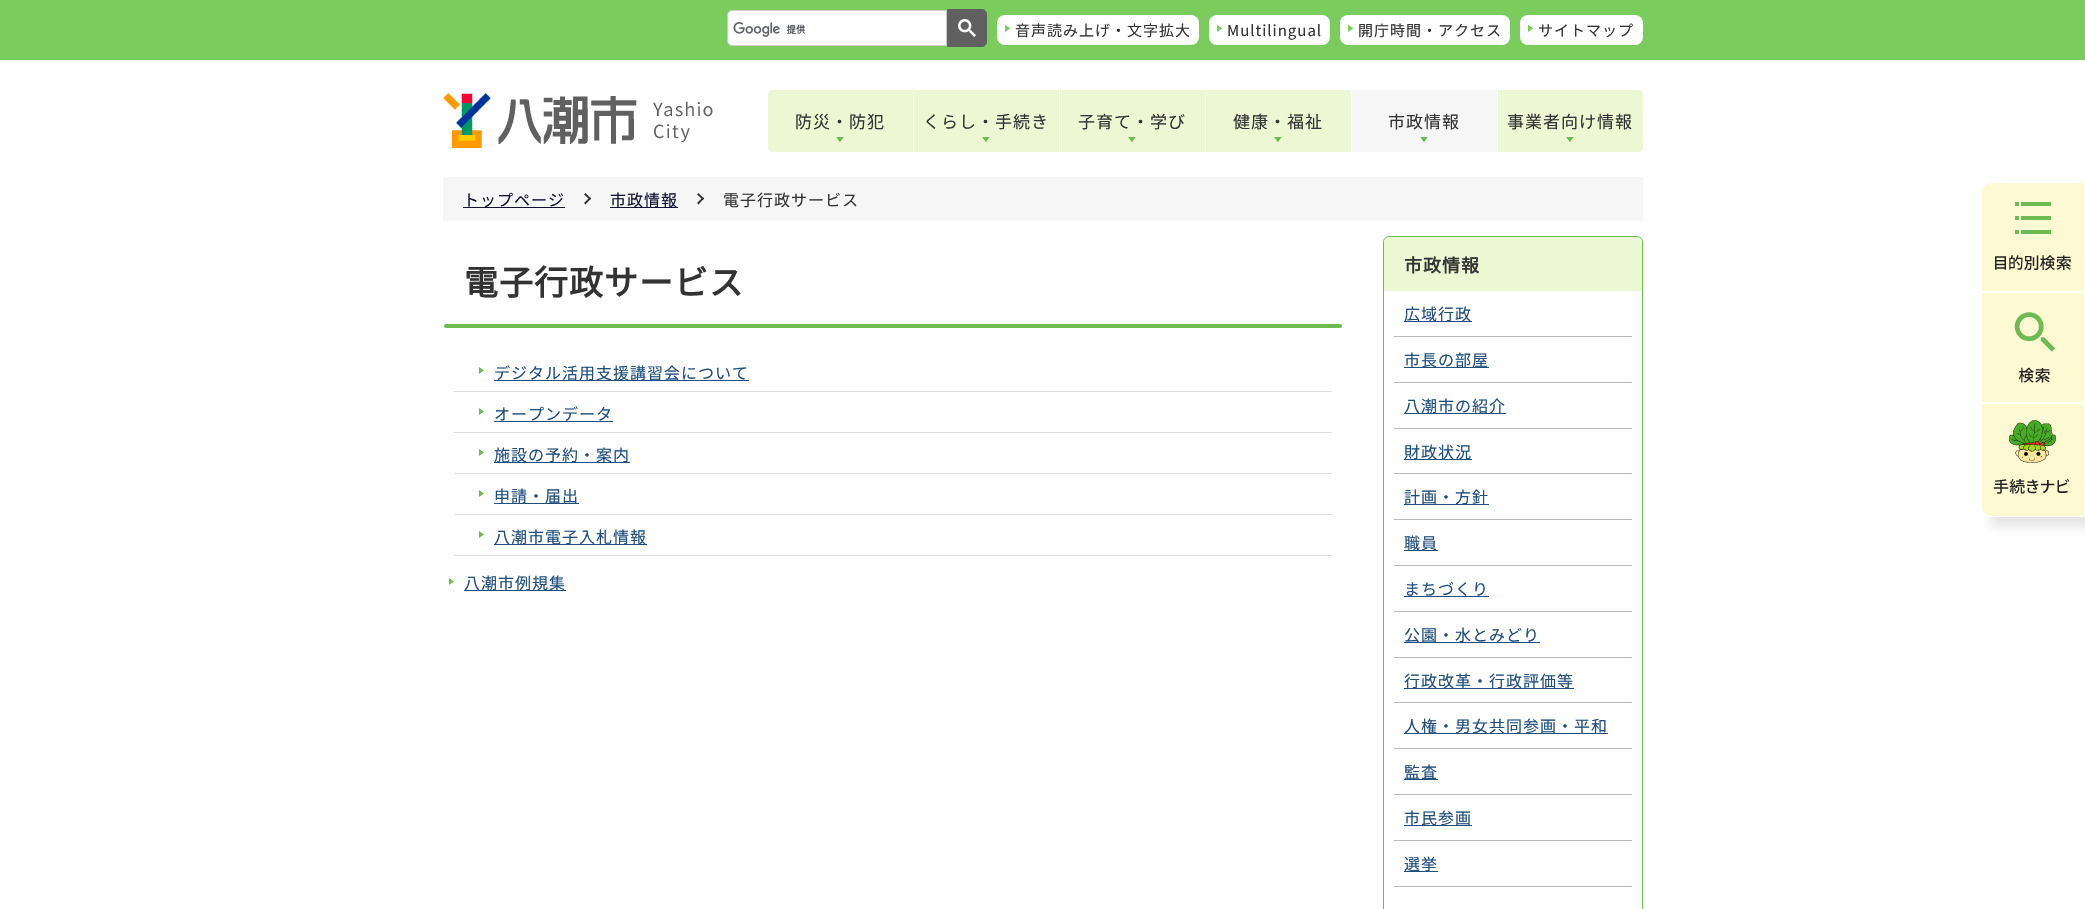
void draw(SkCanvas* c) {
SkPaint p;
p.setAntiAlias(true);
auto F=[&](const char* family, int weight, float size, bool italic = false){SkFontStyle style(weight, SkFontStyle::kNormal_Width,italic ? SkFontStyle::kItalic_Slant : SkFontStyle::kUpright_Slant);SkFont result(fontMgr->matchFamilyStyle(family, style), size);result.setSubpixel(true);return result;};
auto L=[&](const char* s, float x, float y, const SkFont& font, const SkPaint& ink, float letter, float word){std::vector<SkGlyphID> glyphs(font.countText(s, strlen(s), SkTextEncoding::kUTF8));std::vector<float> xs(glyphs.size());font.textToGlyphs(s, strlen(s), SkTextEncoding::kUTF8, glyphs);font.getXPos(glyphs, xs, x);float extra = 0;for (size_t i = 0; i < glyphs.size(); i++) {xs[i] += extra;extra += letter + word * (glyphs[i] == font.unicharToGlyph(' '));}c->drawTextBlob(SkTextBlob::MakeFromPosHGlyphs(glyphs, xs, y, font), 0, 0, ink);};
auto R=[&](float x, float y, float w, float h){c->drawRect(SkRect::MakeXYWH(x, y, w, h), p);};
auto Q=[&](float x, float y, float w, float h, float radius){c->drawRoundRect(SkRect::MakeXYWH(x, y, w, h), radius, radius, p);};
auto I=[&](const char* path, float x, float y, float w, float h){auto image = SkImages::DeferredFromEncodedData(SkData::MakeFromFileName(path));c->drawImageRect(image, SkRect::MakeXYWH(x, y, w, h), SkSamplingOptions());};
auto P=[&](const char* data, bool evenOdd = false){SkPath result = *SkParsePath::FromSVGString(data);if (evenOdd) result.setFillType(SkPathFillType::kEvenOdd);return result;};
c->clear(0xffffffff);
p.setColor(0xff7acc5c);
R(0,0,2085,60);
p.setColor(0xffffffff);
c->drawPath(P("M732 10.5h214.5v35h-214.5c-2.5 0-4.5-2-4.5-4.5v-26c0-2.5 2-4.5 4.5-4.5z"),p);
p.setStroke(true);
p.setStrokeWidth(1);
p.setColor(0xffcccccc);
c->drawPath(P("M732 10.5h214.5v35h-214.5c-2.5 0-4.5-2-4.5-4.5v-26c0-2.5 2-4.5 4.5-4.5z"),p);
I("1.png",733,22,73,15);
p.setStroke(false);
p.setColor(0xff606060);
c->drawPath(P("M947.5 9.5h34.5c2.5 0 4.5 2 4.5 4.5v28c0 2.5-2 4.5-4.5 4.5h-34.5z"),p);
p.setStroke(true);
c->drawPath(P("M947.5 9.5h34.5c2.5 0 4.5 2 4.5 4.5v28c0 2.5-2 4.5-4.5 4.5h-34.5z"),p);
I("2.png",958,19,18,18);
p.setStroke(false);
p.setColor(0xffffffff);
Q(997,15,202,30,8);
I("3.png",1005,24,5,8);
auto f1 = F("Noto Sans JP",100,15);
p.setColor(0xff333333);
L("音声読み上げ・文字拡大",1015,36,f1,p,1,0);
p.setColor(0xffffffff);
Q(1209,15,121,30,8);
I("3.png",1217,24,5,8);
p.setColor(0xff333333);
L("Multilingual",1227,36,f1,p,1,0);
p.setColor(0xffffffff);
Q(1340,15,170,30,8);
I("3.png",1348,24,5,8);
p.setColor(0xff333333);
L("開庁時間・アクセス",1358,36,f1,p,1,0);
p.setColor(0xffffffff);
Q(1520,15,123,30,8);
I("3.png",1528,24,5,8);
p.setColor(0xff333333);
L("サイトマップ",1538,36,f1,p,1,0);
I("4.png",443,93,270,55);
p.setColor(0xffedf7d3);
c->drawPath(P("M772 90h141v62h-141c-2 0-4-2-4-4v-54c0-2 2-4 4-4z"),p);
auto f2 = F("Noto Sans JP",100,17);
p.setColor(0xff333333);
L("防災・防犯",795,128,f2,p,1,0);
I("5.png",836,137,8,5);
p.setColor(0xffedf7d3);
R(914,90,145,62);
p.setColor(0xff333333);
L("くらし・手続き",923,128,f2,p,1,0);
I("5.png",982,137,8,5);
p.setColor(0xffedf7d3);
R(1060,90,145,62);
p.setColor(0xff333333);
L("子育て・学び",1078,128,f2,p,1,0);
I("5.png",1128,137,8,5);
p.setColor(0xffedf7d3);
R(1206,90,145,62);
p.setColor(0xff333333);
L("健康・福祉",1233,128,f2,p,1,0);
I("5.png",1274,137,8,5);
p.setColor(0xfff6f6f6);
R(1352,90,145,62);
p.setColor(0xff333333);
L("市政情報",1388,128,f2,p,1,0);
I("6.png",1420,137,8,5);
p.setColor(0xffedf7d3);
c->drawPath(P("M1498 90h141c2 0 4 2 4 4v54c0 2-2 4-4 4h-141z"),p);
p.setColor(0xff333333);
L("事業者向け情報",1507,128,f2,p,1,0);
I("5.png",1566,137,8,5);
p.setColor(0xfff6f6f6);
R(443,177,1200,44);
p.setColor(0xff111133);
R(463,207,102,1);
auto f3 = F("Noto Sans JP",100,16);
L("トップページ",463,206,f3,p,1,0);
p.setColor(0xff333333);
c->drawPath(P("M585.5 193l5.5 5.5l-1 1.5l-6-5.5z"),p);
c->drawPath(P("M590 197l1 1.5l-5.5 6l-1.5-1.5z"),p);
p.setColor(0xff111133);
R(610,207,68,1);
L("市政情報",610,206,f3,p,1,0);
p.setColor(0xff333333);
c->drawPath(P("M698.5 193l5.5 5.5l-1 1.5l-6-5.5z"),p);
c->drawPath(P("M703 197l1 1.5l-5.5 6l-1.5-1.5z"),p);
L("電子行政サービス",723,206,f3,p,1,0);
auto f4 = F("Noto Sans JP",700,34);
L("電子行政サービス",464,295,f4,p,1,0);
p.setColor(0xff6dbb52);
Q(444,324,898,4,2);
p.setColor(0xffdddddd);
R(454,391,878,1);
I("7.png",479,367,5,7);
p.setColor(0xff1f4e7f);
R(494,380,255,1);
L("デジタル活用支援講習会について",494,379,f3,p,1,0);
p.setColor(0xffdddddd);
R(454,432,878,1);
I("7.png",479,408,5,7);
p.setColor(0xff1f4e7f);
L("オープンデータ",494,420,f3,p,1,0);
R(494,421,119,1);
p.setColor(0xffdddddd);
R(454,473,878,1);
I("7.png",479,449,5,7);
p.setColor(0xff1f4e7f);
R(494,462,136,1);
L("施設の予約・案内",494,461,f3,p,1,0);
p.setColor(0xffdddddd);
R(454,514,878,1);
I("7.png",479,490,5,7);
p.setColor(0xff1f4e7f);
R(494,503,85,1);
L("申請・届出",494,502,f3,p,1,0);
p.setColor(0xffdddddd);
R(454,555,878,1);
I("7.png",479,531,5,7);
p.setColor(0xff1f4e7f);
R(494,544,153,1);
L("八潮市電子入札情報",494,543,f3,p,1,0);
I("7.png",449,578,5,7);
R(464,590,102,1);
L("八潮市例規集",464,589,f3,p,1,0);
p.setStroke(true);
p.setColor(0xff6dbb52);
c->drawRoundRect(SkRect::MakeXYWH(1383.5,236.5,259,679),5.5,5.5,p);
p.setStroke(false);
p.setColor(0xffedf7d3);
c->drawPath(P("M1390 237h246c3.5 0 6 2.5 6 6v48h-258v-48c0-3.5 2.5-6 6-6z"),p);
auto f5 = F("Noto Sans JP",700,18);
p.setColor(0xff333333);
L("市政情報",1404,272,f5,p,1,0);
p.setColor(0xffbbbbbb);
R(1394,336,238,1);
p.setColor(0xff1f4e7f);
R(1404,321,68,1);
L("広域行政",1404,320,f3,p,1,0);
p.setColor(0xffbbbbbb);
R(1394,382,238,1);
p.setColor(0xff1f4e7f);
R(1404,367,85,1);
L("市長の部屋",1404,366,f3,p,1,0);
p.setColor(0xffbbbbbb);
R(1394,428,238,1);
p.setColor(0xff1f4e7f);
R(1404,413,102,1);
L("八潮市の紹介",1404,412,f3,p,1,0);
p.setColor(0xffbbbbbb);
R(1394,473,238,1);
p.setColor(0xff1f4e7f);
R(1404,459,68,1);
L("財政状況",1404,458,f3,p,1,0);
p.setColor(0xffbbbbbb);
R(1394,519,238,1);
p.setColor(0xff1f4e7f);
R(1404,504,85,1);
L("計画・方針",1404,503,f3,p,1,0);
p.setColor(0xffbbbbbb);
R(1394,565,238,1);
p.setColor(0xff1f4e7f);
R(1404,550,34,1);
L("職員",1404,549,f3,p,1,0);
p.setColor(0xffbbbbbb);
R(1394,611,238,1);
p.setColor(0xff1f4e7f);
L("まちづくり",1404,595,f3,p,1,0);
R(1404,596,85,1);
p.setColor(0xffbbbbbb);
R(1394,657,238,1);
p.setColor(0xff1f4e7f);
R(1404,642,136,1);
L("公園・水とみどり",1404,641,f3,p,1,0);
p.setColor(0xffbbbbbb);
R(1394,702,238,1);
p.setColor(0xff1f4e7f);
R(1404,688,170,1);
L("行政改革・行政評価等",1404,687,f3,p,1,0);
p.setColor(0xffbbbbbb);
R(1394,748,238,1);
p.setColor(0xff1f4e7f);
R(1404,733,204,1);
L("人権・男女共同参画・平和",1404,732,f3,p,1,0);
p.setColor(0xffbbbbbb);
R(1394,794,238,1);
p.setColor(0xff1f4e7f);
L("監査",1404,778,f3,p,1,0);
R(1404,779,34,1);
p.setColor(0xffbbbbbb);
R(1394,840,238,1);
p.setColor(0xff1f4e7f);
R(1404,825,68,1);
L("市民参画",1404,824,f3,p,1,0);
p.setColor(0xffbbbbbb);
R(1394,886,238,1);
p.setColor(0xff1f4e7f);
R(1404,871,34,1);
L("選挙",1404,870,f3,p,1,0);
p.setColor(0x1a000000);
p.setMaskFilter(SkMaskFilter::MakeBlur(kNormal_SkBlurStyle, 5));
c->drawRect(SkRect::MakeXYWH(1991,192,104,335),p);
p.setMaskFilter(nullptr);
p.setColor(0xfffdf9d3);
c->drawPath(P("M1991 182.5h93.5v109h-103v-99.5c0-5 4.5-9.5 9.5-9.5z"),p);
p.setStroke(true);
p.setColor(0xffffffff);
c->drawPath(P("M1991 182.5h93.5v109h-103v-99.5c0-5 4.5-9.5 9.5-9.5z"),p);
I("8.png",1982,183,89,87);
p.setStroke(false);
p.setColor(0xfffdf9d3);
c->drawRect(SkRect::MakeXYWH(1981.5,292.5,103,110),p);
p.setStroke(true);
p.setColor(0xffffffff);
c->drawRect(SkRect::MakeXYWH(1981.5,292.5,103,110),p);
I("9.png",2014,312,41,71);
p.setStroke(false);
p.setColor(0xfffdf9d3);
c->drawPath(P("M1981.5 403.5h103v113h-93.5c-5 0-9.5-4.5-9.5-9.5z"),p);
p.setStroke(true);
p.setColor(0xffffffff);
c->drawPath(P("M1981.5 403.5h103v113h-93.5c-5 0-9.5-4.5-9.5-9.5z"),p);
I("10.png",1982,420,88,96);
}
